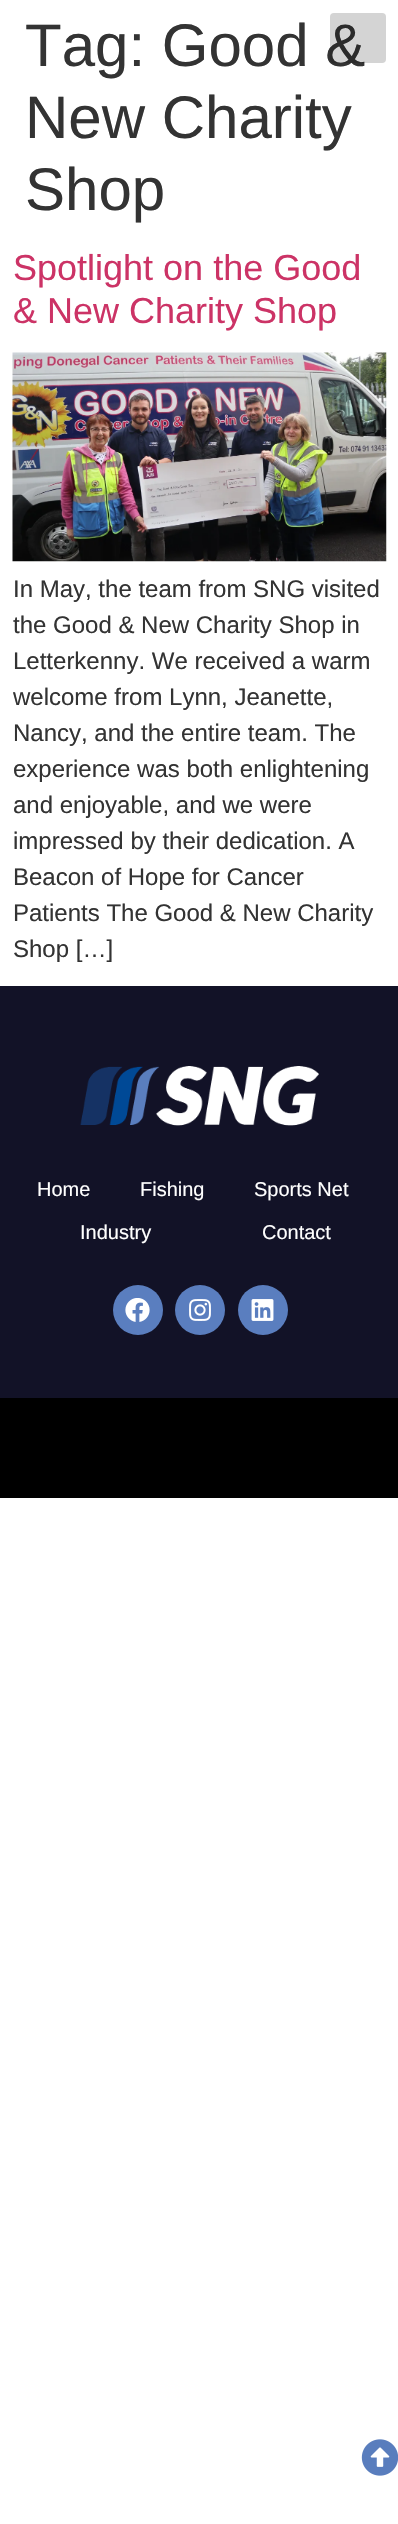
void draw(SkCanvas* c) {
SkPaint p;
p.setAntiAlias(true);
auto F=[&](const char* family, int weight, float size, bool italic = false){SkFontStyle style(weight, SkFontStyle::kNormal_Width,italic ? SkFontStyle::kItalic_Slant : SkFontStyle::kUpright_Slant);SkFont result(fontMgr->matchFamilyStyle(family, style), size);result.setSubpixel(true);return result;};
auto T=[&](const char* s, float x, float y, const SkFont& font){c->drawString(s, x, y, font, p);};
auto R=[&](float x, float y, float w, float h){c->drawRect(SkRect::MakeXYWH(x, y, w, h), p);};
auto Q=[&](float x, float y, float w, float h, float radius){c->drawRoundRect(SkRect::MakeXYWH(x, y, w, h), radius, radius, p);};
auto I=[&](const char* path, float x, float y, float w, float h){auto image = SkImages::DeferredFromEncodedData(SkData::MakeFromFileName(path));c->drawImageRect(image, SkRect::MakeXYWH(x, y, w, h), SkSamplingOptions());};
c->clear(0xffffffff);
auto f1 = F("Liberation Sans",400,60);
p.setColor(0xff333333);
T("Tag: Good &",25,66,f1);
p.setColor(0x2b000000);
Q(330,13,56,50,4);
p.setColor(0xff333333);
T("New Charity",25,138,f1);
T("Shop",25,210,f1);
auto f2 = F("Liberation Sans",400,36);
p.setColor(0xffcc3366);
T("Spotlight on the Good",13,280,f2);
T("& New Charity Shop",13,323,f2);
I("1.png",12,352,375,210);
auto f3 = F("Liberation Sans",400,24);
p.setColor(0xff333333);
T("In May, the team from SNG visited",13,597,f3);
T("the Good & New Charity Shop in",13,633,f3);
T("Letterkenny. We received a warm",13,669,f3);
T("welcome from Lynn, Jeanette,",13,705,f3);
T("Nancy, and the entire team. The",13,741,f3);
T("experience was both enlightening",13,777,f3);
T("and enjoyable, and we were",13,813,f3);
T("impressed by their dedication. A",13,849,f3);
T("Beacon of Hope for Cancer",13,885,f3);
T("Patients The Good & New Charity",13,921,f3);
T("Shop […]",13,957,f3);
p.setColor(0xff121227);
R(0,986,398,412);
I("2.png",80,1066,239,60);
auto f4 = F("Liberation Sans",400,20);
p.setColor(0xffffffff);
T("Home",37,1196,f4);
T("Fishing",140,1196,f4);
T("Sports Net",254,1196,f4);
T("Industry",80,1239,f4);
T("Contact",262,1239,f4);
p.setColor(0xff5a7ebf);
c->drawCircle(138,1310,25,p);
I("3.png",125,1298,25,24);
c->drawCircle(200,1310,25,p);
I("4.png",189,1299,22,22);
c->drawCircle(263,1310,25,p);
I("5.png",251,1299,23,22);
p.setColor(0xff000000);
R(0,1398,398,100);
I("6.png",361,2439,37,37);
}
